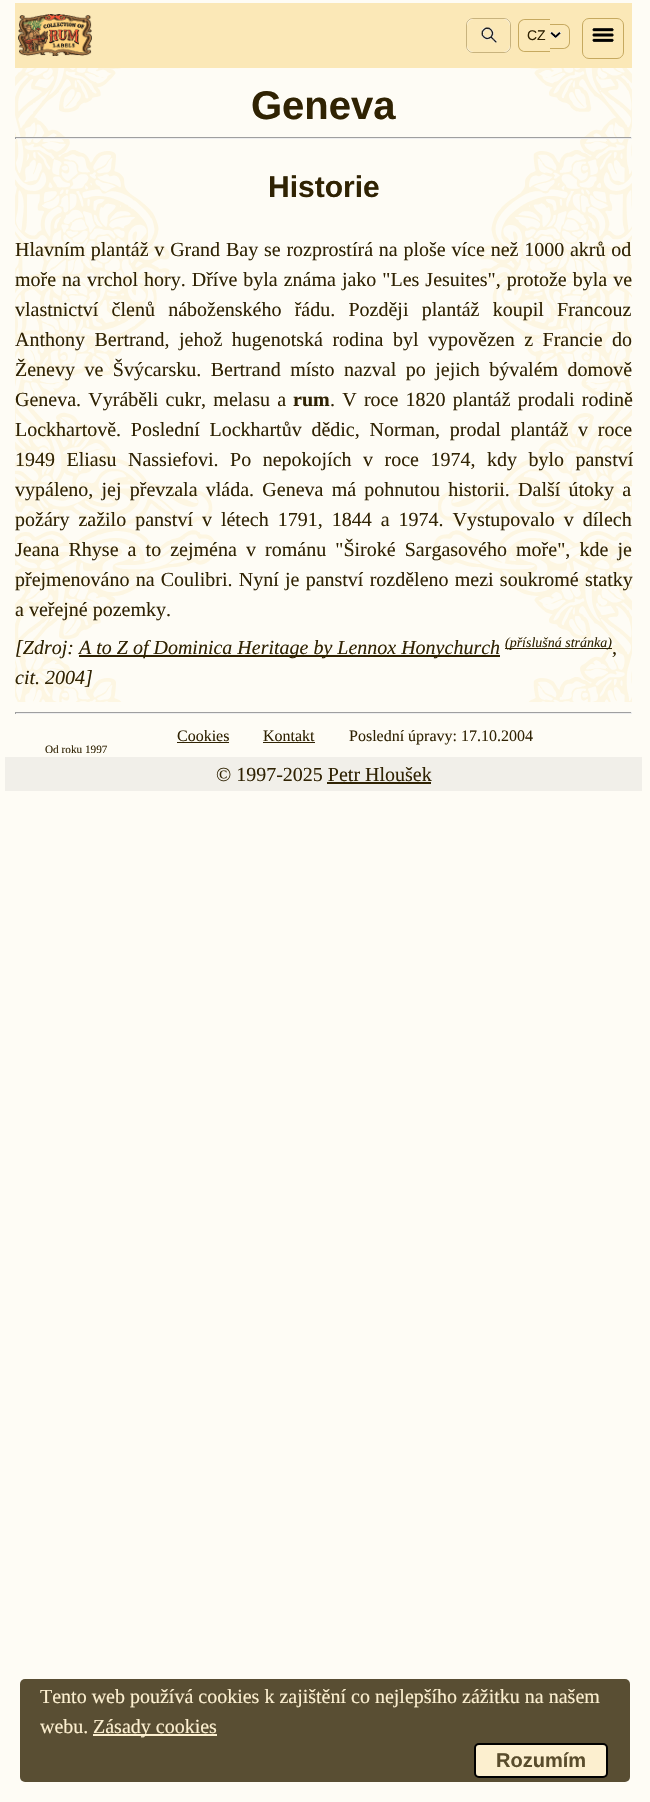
void draw(SkCanvas* c) {
SkPaint p;
p.setAntiAlias(true);
auto F=[&](const char* family, int weight, float size, bool italic = false){SkFontStyle style(weight, SkFontStyle::kNormal_Width,italic ? SkFontStyle::kItalic_Slant : SkFontStyle::kUpright_Slant);SkFont result(fontMgr->matchFamilyStyle(family, style), size);result.setSubpixel(true);return result;};
auto T=[&](const char* s, float x, float y, const SkFont& font){c->drawString(s, x, y, font, p);};
auto L=[&](const char* s, float x, float y, const SkFont& font, const SkPaint& ink, float letter, float word){std::vector<SkGlyphID> glyphs(font.countText(s, strlen(s), SkTextEncoding::kUTF8));std::vector<float> xs(glyphs.size());font.textToGlyphs(s, strlen(s), SkTextEncoding::kUTF8, glyphs);font.getXPos(glyphs, xs, x);float extra = 0;for (size_t i = 0; i < glyphs.size(); i++) {xs[i] += extra;extra += letter + word * (glyphs[i] == font.unicharToGlyph(' '));}c->drawTextBlob(SkTextBlob::MakeFromPosHGlyphs(glyphs, xs, y, font), 0, 0, ink);};
auto R=[&](float x, float y, float w, float h){c->drawRect(SkRect::MakeXYWH(x, y, w, h), p);};
auto Q=[&](float x, float y, float w, float h, float radius){c->drawRoundRect(SkRect::MakeXYWH(x, y, w, h), radius, radius, p);};
auto I=[&](const char* path, float x, float y, float w, float h){auto image = SkImages::DeferredFromEncodedData(SkData::MakeFromFileName(path));c->drawImageRect(image, SkRect::MakeXYWH(x, y, w, h), SkSamplingOptions());};
auto P=[&](const char* data, bool evenOdd = false){SkPath result = *SkParsePath::FromSVGString(data);if (evenOdd) result.setFillType(SkPathFillType::kEvenOdd);return result;};
c->clear(0xfffefcf5);
I("1.png",15,68,617,634);
p.setColor(0xfffbe8b7);
R(15,3,617,65);
I("2.png",18,14,74,42);
p.setColor(0xfffefcf5);
Q(466,18,45,35,7);
p.setStroke(true);
p.setStrokeWidth(1);
p.setColor(0x80916a08);
c->drawRoundRect(SkRect::MakeXYWH(466.5,18.5,44,34),6.5,6.5,p);
p.setStroke(false);
p.setColor(0xfffbe8b7);
Q(467,19,43,33,7);
I("3.png",481,27,16,16);
p.setColor(0xffc6a960);
c->drawPath(P("M525 19h25v33h-25c-4 0-7-3-7-7v-19c0-4 3-7 7-7zm0 1h25v31h-25c-3.5 0-6-2.5-6-6v-19c0-3.5 2.5-6 6-6zm25 4h13c4 0 7 3 7 7v11c0 4-3 7-7 7h-13zm0 1h13c3.5 0 6 2.5 6 6v11c0 3.5-2.5 6-6 6h-13z",true),p);
auto f1 = F("Liberation Sans",400,14);
p.setColor(0xff302303);
T("CZ",527,40,f1);
I("4.png",550,32,11,6);
p.setStroke(true);
p.setColor(0xffc6a960);
c->drawRoundRect(SkRect::MakeXYWH(582.5,18.5,41,40),6.5,6.5,p);
I("5.png",592,28,22,14);
auto f2 = F("Liberation Sans",700,40);
p.setStroke(false);
p.setColor(0xff302303);
T("Geneva",251,119,f2);
p.setColor(0xff9f9f9f);
R(15,137,617,1);
p.setColor(0xffeeeeee);
R(631,137,1,2);
R(15,138,617,1);
p.setColor(0xff9f9f9f);
R(15,137,1,2);
auto f3 = F("Liberation Sans",700,30);
p.setColor(0xff302303);
T("Historie",268,197,f3);
auto f4 = F("Liberation Serif",400,20);
L("Hlavním plantáž v Grand Bay se rozprostírá na ploše více než 1000 akrů od",15,256,f4,p,0,.8);
L("moře na vrchol hory. Dříve byla známa jako \"Les Jesuites\", protože byla ve",15,286,f4,p,0,1);
L("vlastnictví členů náboženského řádu. Později plantáž koupil Francouz",15,316,f4,p,0,8.25);
L("Anthony Bertrand, jehož hugenotská rodina byl vypovězen z Francie do",15,346,f4,p,0,4.5);
L("Ženevy ve Švýcarsku. Bertrand místo nazval po jejich bývalém domově",15,376,f4,p,0,4.5);
L("Geneva. Vyráběli cukr, melasu a",15,406,f4,p,0,2.25);
auto f5 = F("Liberation Serif",700,20);
T("rum",293,406,f5);
L(". V roce 1820 plantáž prodali rodině",330,406,f4,p,0,2.25);
L("Lockhartově. Poslední Lockhartův dědic, Norman, prodal plantáž v roce",15,436,f4,p,0,4.75);
L("1949 Eliasu Nassiefovi. Po nepokojích v roce 1974, kdy bylo panství",15,466,f4,p,0,6.5);
L("vypáleno, jej převzala vláda. Geneva má pohnutou historii. Další útoky a",15,496,f4,p,0,3.25);
L("požáry zažilo panství v létech 1791, 1844 a 1974. Vystupovalo v dílech",15,526,f4,p,0,4);
L("Jeana Rhyse a to zejména v románu \"Široké Sargasového moře\", kde je",15,556,f4,p,0,4.1);
L("přejmenováno na Coulibri. Nyní je panství rozděleno mezi soukromé statky",15,586,f4,p,0,1.25);
T("a veřejné pozemky.",15,616,f4);
auto f6 = F("Liberation Serif",400,20,true);
T("[Zdroj:",15,654,f6);
R(79,655,421,2);
T("A to Z of Dominica Heritage by Lennox Honychurch",79,654,f6);
R(505,648,107,1);
auto f7 = F("Liberation Serif",400,14,true);
T("(příslušná stránka)",505,647,f7);
T(",",612,654,f6);
T("cit. 2004]",15,684,f6);
p.setColor(0xff9f9f9f);
R(15,712,617,1);
p.setColor(0xffeeeeee);
R(631,712,1,2);
R(15,713,617,1);
p.setColor(0xff9f9f9f);
R(15,712,1,2);
auto f8 = F("Liberation Serif",400,16);
p.setColor(0xff302303);
T("Cookies",177,741,f8);
R(177,742,52,1);
T("Kontakt",263,741,f8);
R(263,742,52,1);
T("Poslední úpravy: 17.10.2004",349,741,f8);
auto f9 = F("Liberation Serif",400,11.25);
T("Od roku 1997",45,753,f9);
p.setColor(0xfff1efe9);
R(5,757,637,34);
p.setColor(0xff302303);
T("© 1997-2025 Petr Hloušek",216,781,f4);
R(327,782,104,2);
p.setColor(0xff594e33);
Q(20,1679,610,103,5);
p.setColor(0xfffcefcf);
T("Tento web používá cookies k zajištění co nejlepšího zážitku na našem",40,1703,f4);
T("webu.",40,1733,f4);
R(93,1734,124,2);
T("Zásady cookies",93,1733,f4);
c->drawRoundRect(SkRect::MakeXYWH(475,1744,132,33),4,4,p);
p.setStroke(true);
p.setStrokeWidth(2);
p.setColor(0xff000000);
c->drawRoundRect(SkRect::MakeXYWH(475,1744,132,33),4,4,p);
auto f10 = F("Liberation Sans",700,20);
p.setStroke(false);
p.setColor(0xff594c2c);
T("Rozumím",496,1767,f10);
}
